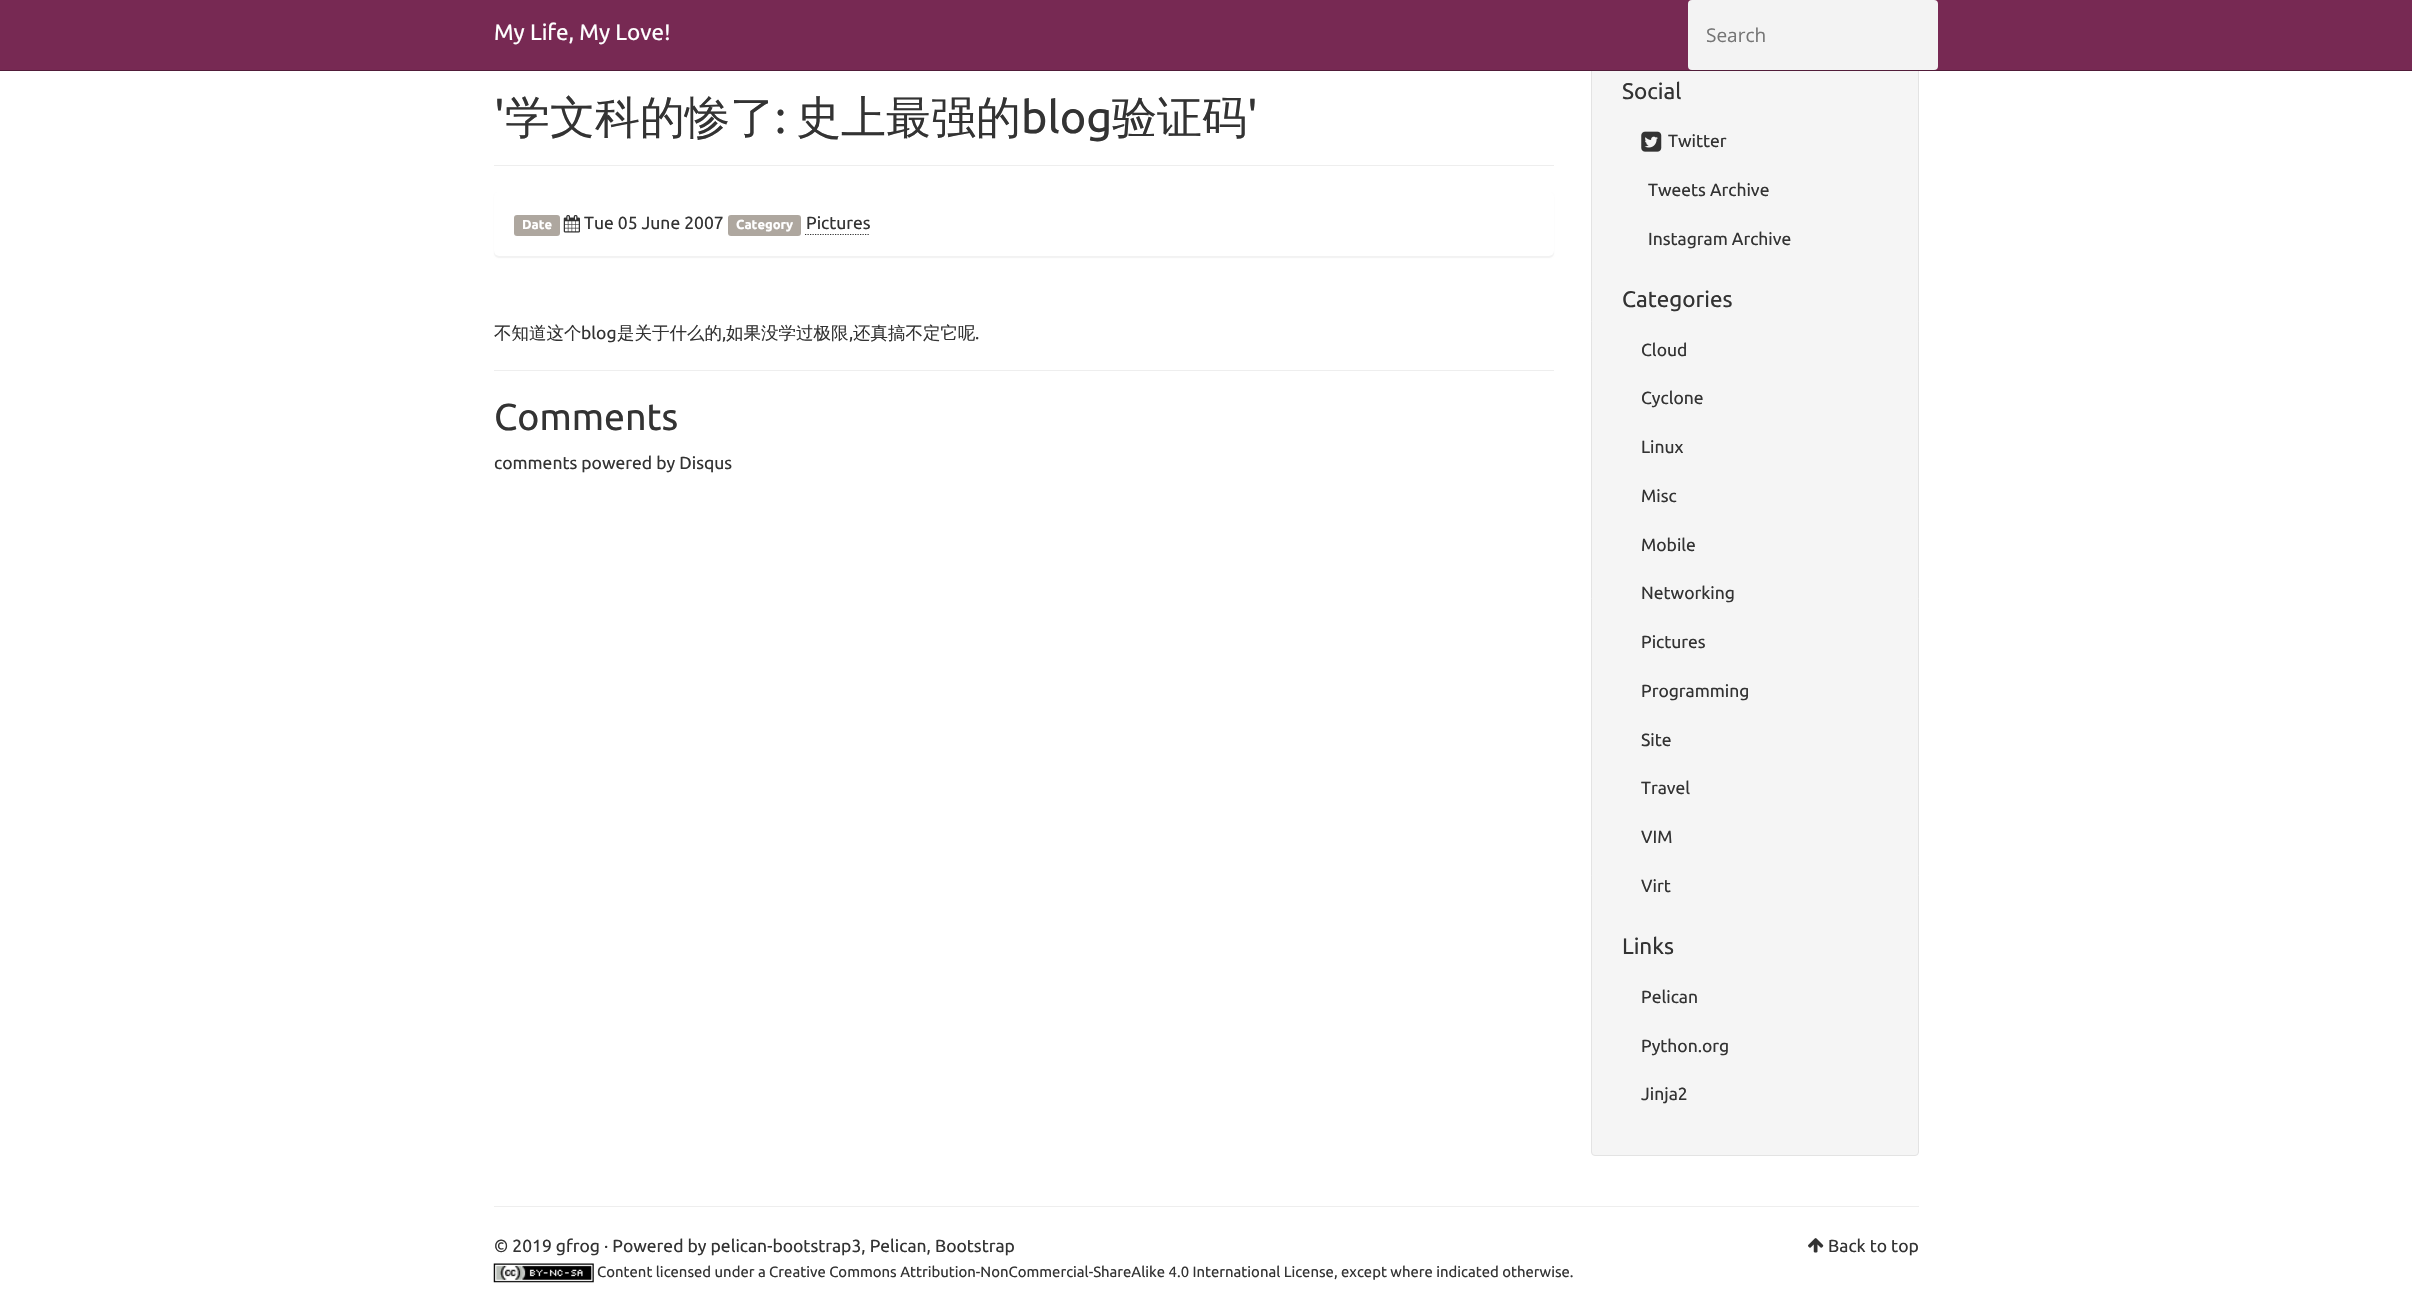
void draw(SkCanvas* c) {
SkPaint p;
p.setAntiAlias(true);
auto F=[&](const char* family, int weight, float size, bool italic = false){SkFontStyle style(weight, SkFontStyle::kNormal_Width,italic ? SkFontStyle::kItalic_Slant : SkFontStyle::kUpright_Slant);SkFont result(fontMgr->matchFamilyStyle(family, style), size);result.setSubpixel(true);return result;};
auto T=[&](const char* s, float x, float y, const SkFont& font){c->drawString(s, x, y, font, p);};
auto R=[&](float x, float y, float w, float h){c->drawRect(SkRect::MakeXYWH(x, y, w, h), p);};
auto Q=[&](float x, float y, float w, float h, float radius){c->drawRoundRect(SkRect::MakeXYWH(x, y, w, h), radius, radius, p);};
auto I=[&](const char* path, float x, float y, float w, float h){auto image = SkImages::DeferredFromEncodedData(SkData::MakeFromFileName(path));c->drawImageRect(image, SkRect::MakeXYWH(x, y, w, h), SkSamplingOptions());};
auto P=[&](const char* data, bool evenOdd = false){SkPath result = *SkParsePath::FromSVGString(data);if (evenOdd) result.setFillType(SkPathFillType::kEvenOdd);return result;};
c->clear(0xffffffff);
p.setColor(0xfff5f5f5);
c->drawRoundRect(SkRect::MakeXYWH(1591.5,41.5,327,1114),3.5,3.5,p);
p.setStroke(true);
p.setStrokeWidth(1);
p.setColor(0xffe3e3e3);
c->drawRoundRect(SkRect::MakeXYWH(1591.5,41.5,327,1114),3.5,3.5,p);
p.setStroke(false);
p.setColor(0xff772953);
R(0,0,2412,70);
p.setColor(0xff511c39);
R(0,70,2412,1);
auto f1 = F("Ubuntu",400,22.5);
p.setColor(0xffffffff);
T("My Life, My Love!",494,40,f1);
p.setColor(0xfff3f3f3);
Q(1688,0,250,70,4);
auto f2 = F("Open Sans",400,19);
p.setColor(0xff757575);
T("Search",1706,42,f2);
p.setColor(0xffeeeeee);
R(494,165,1060,1);
auto f3 = F("Ubuntu",400,45);
p.setColor(0xff333333);
T("'",494,133,f3);
auto f4 = F("WenQuanYi Zen Hei",500,45);
T("学文科的惨了",505,133,f4);
T("史上最强的",796,133,f4);
T("blog",1021,133,f3);
T("验证码",1112,133,f4);
T("'",1247,133,f3);
T(":",775,133,f3);
p.setColor(0x0d000000);
p.setMaskFilter(SkMaskFilter::MakeBlur(kNormal_SkBlurStyle, .5));
c->drawRoundRect(SkRect::MakeXYWH(494,193,1060,65),5,5,p);
p.setMaskFilter(nullptr);
p.setColor(0xffffffff);
Q(494,191,1060,65,5);
p.setColor(0xffaea79f);
Q(514,215,46,21,3);
auto f5 = F("Ubuntu",700,13);
p.setColor(0xffffffff);
T("Date",522,229,f5);
I("1.png",563,215,17,18);
auto f6 = F("Ubuntu",400,17.5);
p.setColor(0xff333333);
T("Tue 05 June 2007",584,229,f6);
p.setColor(0xffaea79f);
Q(728,215,73,21,3);
p.setColor(0xffffffff);
T("Category",736,229,f5);
p.setColor(0xff333333);
T("Pictures",806,229,f6);
p.setStroke(true);
p.setStrokeWidth(1.2);
p.setPathEffect(SkDashPathEffect::Make({{1.25f,1.25f}}, 0));
c->drawPath(P("M805 234.5h65"),p);
p.setPathEffect(nullptr);
auto f7 = F("WenQuanYi Zen Hei",500,17.5);
p.setStroke(false);
T("不知道这个",494,339,f7);
T("blog",581,339,f6);
T("是关于什么的",617,339,f7);
T(",",722,339,f6);
T("如果没学过极限",726,339,f7);
T(",",849,339,f6);
T("还真搞不定它呢",853,339,f7);
T(".",975,339,f6);
p.setColor(0xffeeeeee);
R(494,370,1060,1);
auto f8 = F("Ubuntu",400,37.5);
p.setColor(0xff333333);
T("Comments",494,430,f8);
T("comments powered by Disqus",494,469,f6);
T("Social",1622,99,f1);
I("2.png",1641,131,21,21);
T("Twitter",1668,147,f6);
T("Tweets Archive",1648,196,f6);
T("Instagram Archive",1648,245,f6);
T("Categories",1622,307,f1);
T("Cloud",1641,356,f6);
T("Cyclone",1641,404,f6);
T("Linux",1641,453,f6);
T("Misc",1641,502,f6);
T("Mobile",1641,551,f6);
T("Networking",1641,599,f6);
T("Pictures",1641,648,f6);
T("Programming",1641,697,f6);
T("Site",1641,746,f6);
T("Travel",1641,794,f6);
T("VIM",1641,843,f6);
T("Virt",1641,892,f6);
T("Links",1622,954,f1);
T("Pelican",1641,1003,f6);
T("Python.org",1641,1052,f6);
T("Jinja2",1641,1100,f6);
p.setColor(0xffeeeeee);
R(494,1206,1425,1);
p.setColor(0xff333333);
T("© 2019 gfrog · Powered by pelican-bootstrap3, Pelican, Bootstrap",494,1252,f6);
I("3.png",493,1263,101,20);
auto f9 = F("Ubuntu",400,14.88);
T("Content licensed under a Creative Commons Attribution-NonCommercial-ShareAlike 4.0 International License, except where indicated otherwise.",597,1277,f9);
I("4.png",1808,1238,16,15);
T("Back to top",1828,1252,f6);
}
